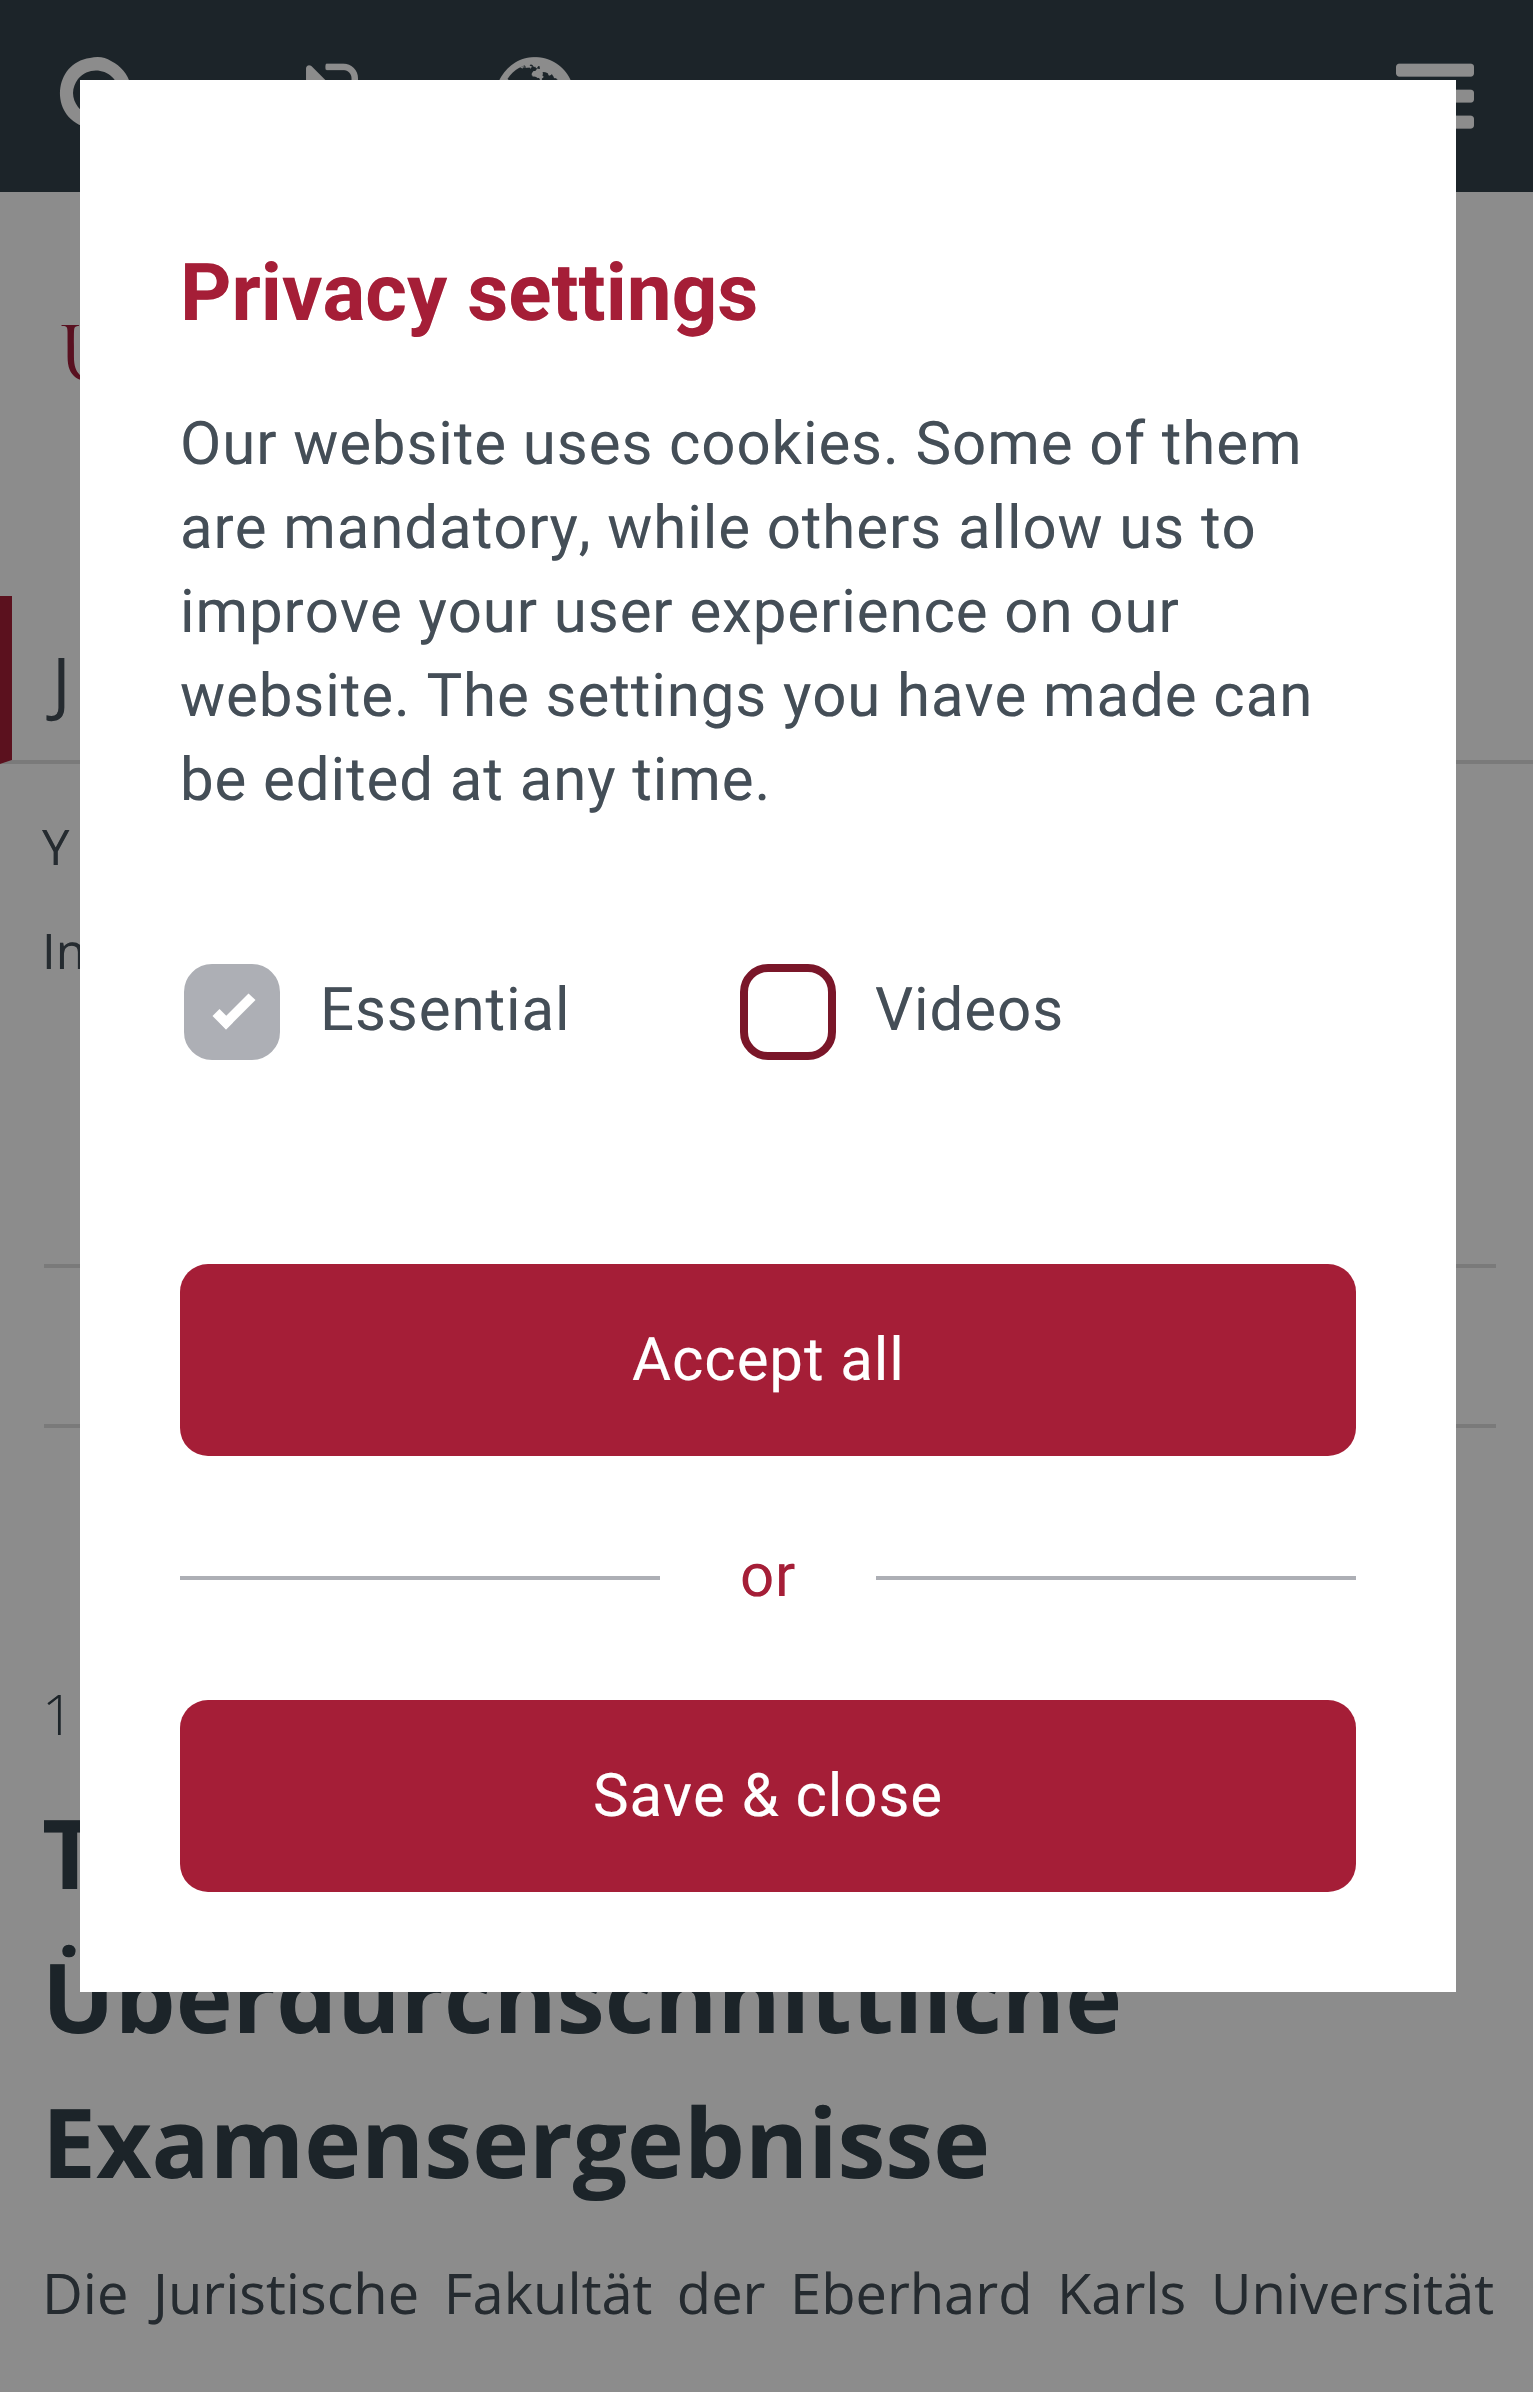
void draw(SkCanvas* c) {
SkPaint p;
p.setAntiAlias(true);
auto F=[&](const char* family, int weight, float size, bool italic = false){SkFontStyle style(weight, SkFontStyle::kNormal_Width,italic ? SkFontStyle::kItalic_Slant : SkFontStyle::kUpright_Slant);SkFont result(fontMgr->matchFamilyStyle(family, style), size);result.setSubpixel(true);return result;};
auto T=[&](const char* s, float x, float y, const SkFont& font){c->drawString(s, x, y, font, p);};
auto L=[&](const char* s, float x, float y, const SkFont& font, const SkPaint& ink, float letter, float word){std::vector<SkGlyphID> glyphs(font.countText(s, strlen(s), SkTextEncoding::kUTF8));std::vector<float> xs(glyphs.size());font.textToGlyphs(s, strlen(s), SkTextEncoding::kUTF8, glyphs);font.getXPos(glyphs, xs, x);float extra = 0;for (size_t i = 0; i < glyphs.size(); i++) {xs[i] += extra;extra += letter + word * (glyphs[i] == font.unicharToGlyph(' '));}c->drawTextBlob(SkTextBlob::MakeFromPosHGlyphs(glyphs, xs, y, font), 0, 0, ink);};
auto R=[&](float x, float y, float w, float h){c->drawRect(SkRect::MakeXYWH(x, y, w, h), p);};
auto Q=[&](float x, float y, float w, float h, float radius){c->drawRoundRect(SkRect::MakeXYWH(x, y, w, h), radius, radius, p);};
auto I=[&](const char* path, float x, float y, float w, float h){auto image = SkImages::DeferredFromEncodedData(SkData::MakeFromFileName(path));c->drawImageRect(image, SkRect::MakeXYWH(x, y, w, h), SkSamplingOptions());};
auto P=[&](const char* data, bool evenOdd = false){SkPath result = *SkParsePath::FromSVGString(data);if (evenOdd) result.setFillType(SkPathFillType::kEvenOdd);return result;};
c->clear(0xff8c8c8c);
p.setColor(0xff1c2429);
R(0,0,1533,192);
p.setColor(0xff8c8c8c);
c->drawPath(P("M119 93c0-21-27-31-41-14c-3 4-5 9-5 14c0 5 2 10 5 14c13 17 41 7 41-14zm26 42c0 2-1 4-3 5c-6 5-11-2-14-6l-12-12c-9 7-20 8-31 5c-36-11-32-64 5-69c8-2 15-1 21 3c20 10 27 34 14 52l18 18c1 1 2 2 2 4z"),p);
I("3.png",1396,63,78,66);
p.setColor(0xff7a7a7a);
c->drawPath(P("M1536 764h-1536l12-4h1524z"),p);
auto f1 = F("Open Sans",400,49);
p.setColor(0xff252b30);
T("In",42,969,f1);
p.setColor(0xff7a7a7a);
R(44,1264,1452,4);
R(44,1424,1452,4);
c->save();
c->clipRect(SkRect::MakeXYWH(44,1664,1452,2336));
auto f2 = F("Open Sans",700,96.25);
p.setColor(0xff1c2429);
T("T",42,1889,f2);
c->restore();
T("Überdurchschnittliche",42,2033,f2);
p.setColor(0xffffffff);
R(80,80,1376,1912);
auto f3 = F("Roboto",700,80);
p.setColor(0xffa51e37);
T("Privacy settings",180,320,f3);
auto f4 = F("Roboto",400,60);
p.setColor(0xff444e57);
L("Our website uses cookies. Some of them",180,464,f4,p,.9,0);
L("are mandatory, while others allow us to",180,548,f4,p,.9,0);
L("improve your user experience on our",180,632,f4,p,.9,0);
L("website. The settings you have made can",180,716,f4,p,.9,0);
L("be edited at any time.",180,800,f4,p,.9,0);
p.setColor(0xffadafb5);
c->drawRoundRect(SkRect::MakeXYWH(188,968,88,88),24,24,p);
p.setStroke(true);
p.setStrokeWidth(8);
c->drawRoundRect(SkRect::MakeXYWH(188,968,88,88),24,24,p);
p.setStroke(false);
p.setColor(0xff444e57);
L("Essential",320,1030,f4,p,.9,0);
p.setColor(0xffffffff);
c->drawPath(P("M219.5 1022.5l29-29l7 6.5l-29.5 29.5z"),p);
c->drawPath(P("M212.5 1016l7-7l13.5 13.5l-7 7z"),p);
p.setStroke(true);
p.setColor(0xff7a1629);
c->drawRoundRect(SkRect::MakeXYWH(744,968,88,88),24,24,p);
p.setStroke(false);
p.setColor(0xff444e57);
L("Videos",875,1030,f4,p,.9,0);
p.setColor(0xffa51e37);
Q(180,1264,1176,192,28);
p.setColor(0xffffffff);
L("Accept all",632,1380,f4,p,.9,0);
p.setColor(0xffadafb5);
R(180,1576,480,4);
p.setColor(0xffa51e37);
L("or",740,1596,f4,p,.9,0);
p.setColor(0xffadafb5);
R(876,1576,480,4);
p.setColor(0xffa51e37);
Q(180,1700,1176,192,28);
p.setColor(0xffffffff);
L("Save & close",593,1816,f4,p,.9,0);
I("1.png",306,63,52,17);
I("2.png",499,57,72,23);
I("4.png",61,325,19,55);
p.setColor(0xff5b111e);
c->drawPath(P("M0 764v-168h12v164z"),p);
auto f5 = F("Open Sans",400,70);
p.setColor(0xff252b30);
T("J",52,708,f5);
T("Y",42,865,f1);
auto f6 = F("Open Sans",300,56);
p.setColor(0xff1c2429);
T("1",42,1735,f6);
T("Examensergebnisse",42,2178,f2);
auto f7 = F("Open Sans",400,56);
p.setColor(0xff252b30);
L("Die Juristische Fakultät der Eberhard Karls Universität",42,2314,f7,p,0,10);
}
